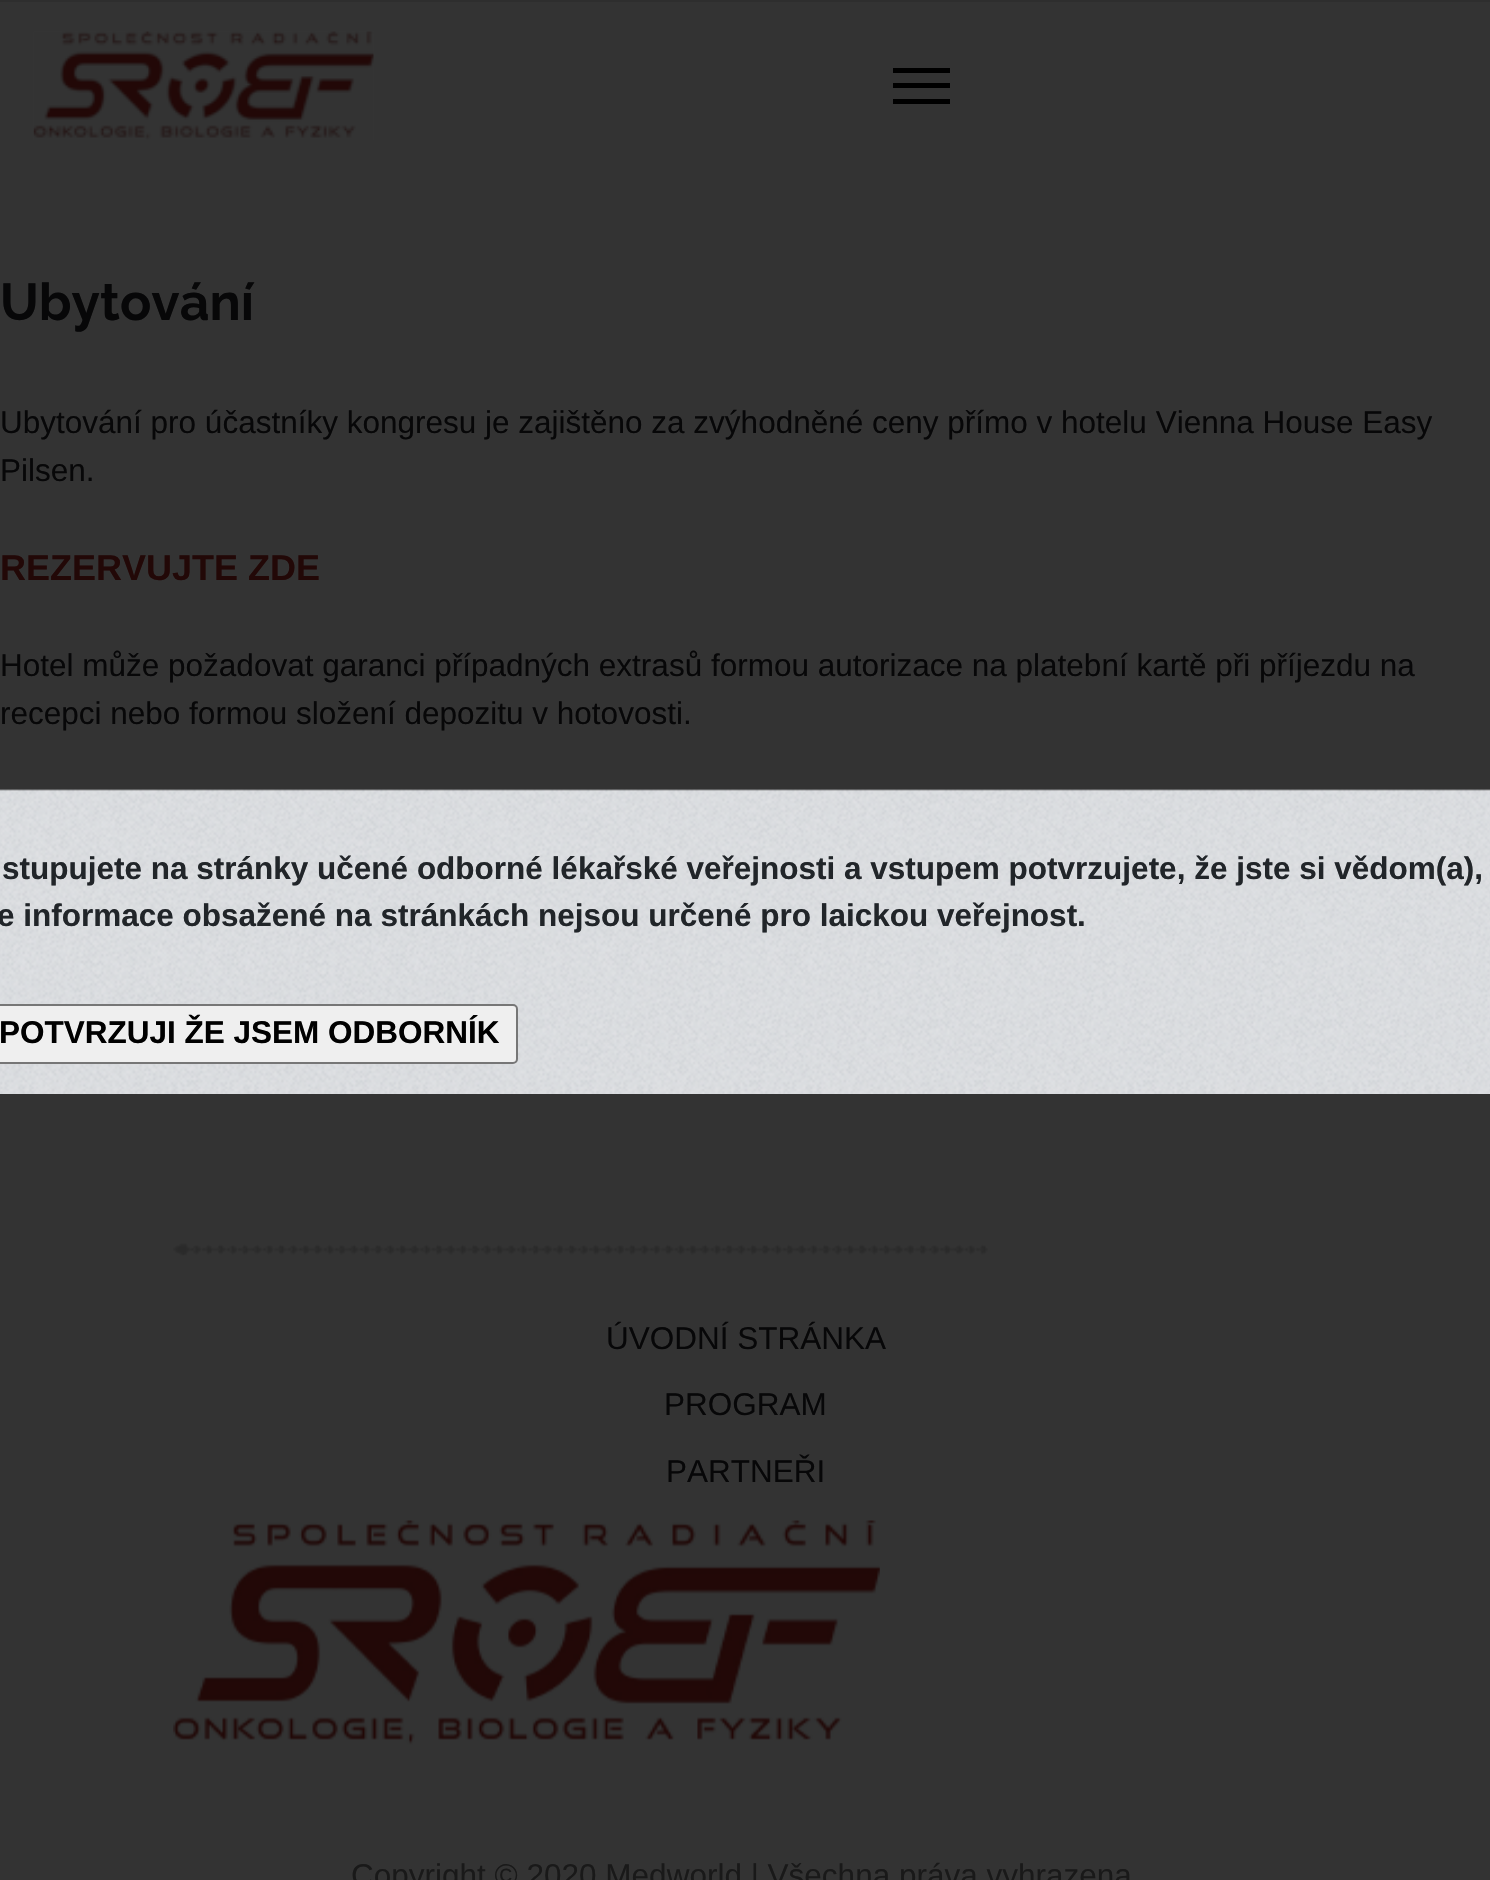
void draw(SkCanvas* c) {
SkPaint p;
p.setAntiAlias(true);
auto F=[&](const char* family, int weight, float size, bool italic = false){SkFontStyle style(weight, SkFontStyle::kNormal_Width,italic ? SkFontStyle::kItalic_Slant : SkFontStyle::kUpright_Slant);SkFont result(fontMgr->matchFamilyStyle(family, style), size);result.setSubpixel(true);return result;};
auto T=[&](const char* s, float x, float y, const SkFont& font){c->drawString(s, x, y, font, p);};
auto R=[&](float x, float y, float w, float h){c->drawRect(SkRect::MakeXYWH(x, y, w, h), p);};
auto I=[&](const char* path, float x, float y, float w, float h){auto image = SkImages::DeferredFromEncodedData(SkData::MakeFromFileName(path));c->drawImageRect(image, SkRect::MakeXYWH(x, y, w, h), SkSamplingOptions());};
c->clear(0xff333333);
p.setColor(0xff2e2e2e);
R(0,0,1490,2);
I("1.png",33,31,341,109);
p.setColor(0xff000000);
R(893,68,57,5);
R(893,83,57,5);
R(893,99,57,5);
auto f1 = F("Raleway",700,51.75);
p.setColor(0xff070708);
T("Ubytování",0,320,f1);
auto f2 = F("Liberation Sans",400,31.5);
T("Ubytování pro účastníky kongresu je zajištěno za zvýhodněné ceny přímo v hotelu Vienna House Easy",0,433,f2);
T("Pilsen.",0,481,f2);
auto f3 = F("Liberation Sans",700,36);
p.setColor(0xff220807);
T("REZERVUJTE ZDE",0,580,f3);
p.setColor(0xff070708);
T("Hotel může požadovat garanci případných extrasů formou autorizace na platební kartě při příjezdu na",0,676,f2);
T("recepci nebo formou složení depozitu v hotovosti.",0,724,f2);
I("2.png",173,1243,815,13);
T("ÚVODNÍ STRÁNKA",606,1349,f2);
T("PROGRAM",664,1415,f2);
T("PARTNEŘI",666,1482,f2);
I("3.png",173,1520,707,225);
p.setColor(0xff191919);
T("Copyright © 2020 Medworld | Všechna práva vyhrazena",351,1886,f2);
I("4.png",0,789,1490,305);
auto f4 = F("Liberation Sans",700,31.5);
p.setColor(0xff212529);
T("stupujete na stránky učené odborné lékařské veřejnosti a vstupem potvrzujete, že jste si vědom(a),",2,879,f4);
T("e informace obsažené na stránkách nejsou určené pro laickou veřejnost.",-3,926,f4);
p.setColor(0xffefefef);
c->drawRoundRect(SkRect::MakeXYWH(-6,1005,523,58),4,4,p);
p.setStroke(true);
p.setStrokeWidth(2);
p.setColor(0xff767676);
c->drawRoundRect(SkRect::MakeXYWH(-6,1005,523,58),4,4,p);
p.setStroke(false);
p.setColor(0xff000000);
T("POTVRZUJI ŽE JSEM ODBORNÍK",-1,1043,f4);
}
